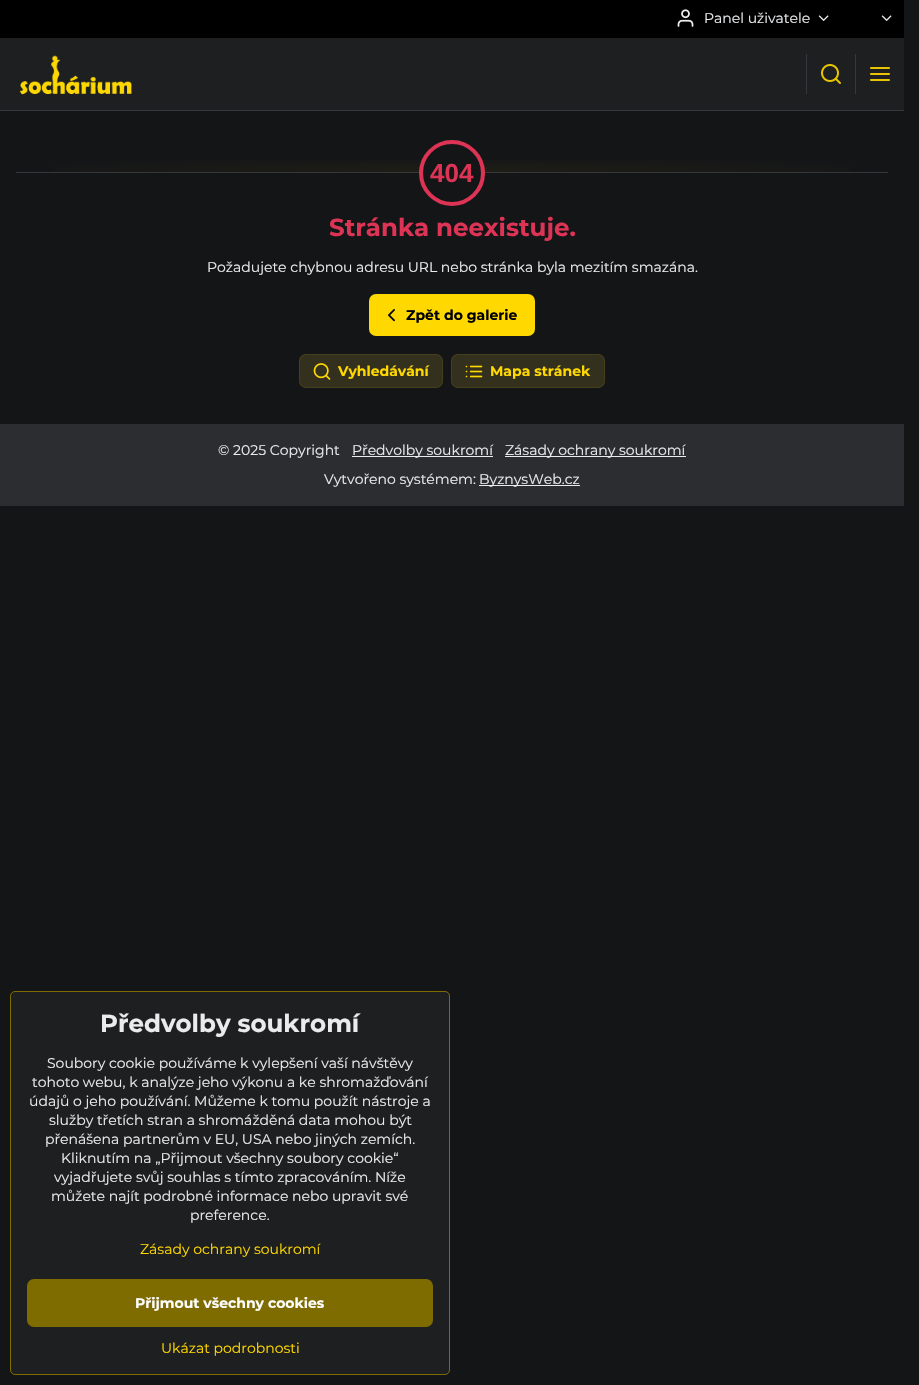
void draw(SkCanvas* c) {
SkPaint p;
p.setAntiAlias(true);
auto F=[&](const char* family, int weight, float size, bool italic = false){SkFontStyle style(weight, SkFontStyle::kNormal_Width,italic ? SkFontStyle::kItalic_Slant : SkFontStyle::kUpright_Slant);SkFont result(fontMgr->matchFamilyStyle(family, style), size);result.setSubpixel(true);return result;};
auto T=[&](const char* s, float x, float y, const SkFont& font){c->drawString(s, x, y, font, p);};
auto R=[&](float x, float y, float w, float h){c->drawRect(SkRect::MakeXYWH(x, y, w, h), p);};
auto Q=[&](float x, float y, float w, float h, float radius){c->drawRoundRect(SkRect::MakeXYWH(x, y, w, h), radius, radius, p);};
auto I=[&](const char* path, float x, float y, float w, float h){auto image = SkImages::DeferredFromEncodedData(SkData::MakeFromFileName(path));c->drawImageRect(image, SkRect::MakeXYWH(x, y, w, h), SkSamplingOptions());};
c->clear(0xff141517);
p.setColor(0xff000000);
R(0,0,904,38);
I("1.png",677,9,17,18);
auto f1 = F("Montserrat",100,14);
p.setColor(0xffeaebed);
T("Panel uživatele",704,23,f1);
I("2.png",818,15,11,6);
I("2.png",881,15,11,6);
p.setColor(0xff1e1f21);
R(0,38,904,72);
p.setColor(0xff35373b);
R(0,110,904,1);
I("3.png",19,55,113,40);
R(806,54,1,40);
I("4.png",821,64,20,20);
R(855,54,1,40);
I("5.png",870,67,20,14);
R(16,172,872,1);
{
const SkColor colors[] = {0xff1f1e16,0xff141517};
const float stops[] = {0,.7};
SkMatrix m = SkMatrix::Translate(452,172).preScale(740,23);
p.setShader(SkGradientShader::MakeRadial({0, 0}, 1, colors, stops, 2, SkTileMode::kClamp, 0, &m));
p.setAlpha(255);
}
R(54,160,796,12);
p.setShader(nullptr);
p.setColor(0xff141517);
c->drawCircle(452,173,31,p);
p.setStroke(true);
p.setStrokeWidth(4);
p.setColor(0xffdd3355);
c->drawCircle(452,173,31,p);
auto f2 = F("Liberation Sans",700,26);
p.setStroke(false);
T("404",430,182,f2);
auto f3 = F("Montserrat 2",100,24.5);
T("Stránka neexistuje.",329,236,f3);
p.setColor(0xffeaebed);
T("Požadujete chybnou adresu URL nebo stránka byla mezitím smazána.",207,272,f1);
p.setColor(0xffffd800);
Q(369,294,166,42,7);
I("6.png",388,309,7,13);
auto f4 = F("Montserrat 2",100,14);
p.setColor(0xff000000);
T("Zpět do galerie",406,320,f4);
p.setColor(0xff1e1f21);
Q(299,354,144,34,7);
p.setColor(0x17ffd800);
Q(299,354,144,34,7);
p.setStroke(true);
p.setStrokeWidth(1);
c->drawRoundRect(SkRect::MakeXYWH(299.5,354.5,143,33),6.5,6.5,p);
I("7.png",313,363,18,17);
p.setStroke(false);
p.setColor(0xffffd800);
T("Vyhledávání",338,376,f4);
p.setColor(0xff1e1f21);
Q(451,354,154,34,7);
p.setColor(0x17ffd800);
Q(451,354,154,34,7);
p.setStroke(true);
c->drawRoundRect(SkRect::MakeXYWH(451.5,354.5,153,33),6.5,6.5,p);
I("8.png",465,365,18,13);
p.setStroke(false);
p.setColor(0xffffd800);
T("Mapa stránek",490,376,f4);
p.setColor(0xff2c2d30);
R(0,424,904,82);
p.setColor(0xffeaebed);
T("© 2025 Copyright",218,455,f1);
R(352,456,141,1);
T("Předvolby soukromí",352,455,f1);
R(505,456,181,1);
T("Zásady ochrany soukromí",505,455,f1);
T("Vytvořeno systémem:",324,484,f1);
R(479,485,101,1);
T("ByznysWeb.cz",479,484,f1);
p.setColor(0xff1e1f21);
c->drawRoundRect(SkRect::MakeXYWH(10.5,991.5,439,383),4.5,4.5,p);
p.setStroke(true);
p.setColor(0xff7f6c00);
c->drawRoundRect(SkRect::MakeXYWH(10.5,991.5,439,383),4.5,4.5,p);
p.setStroke(false);
p.setColor(0xffeaebed);
T("Předvolby soukromí",100,1032,f3);
T("Soubory cookie používáme k vylepšení vaší návštěvy",47,1068,f1);
T("tohoto webu, k analýze jeho výkonu a ke shromažďování",32,1087,f1);
T("údajů o jeho používání. Můžeme k tomu použít nástroje a",29,1106,f1);
T("služby třetích stran a shromážděná data mohou být",49,1125,f1);
T("přenášena partnerům v EU, USA nebo jiných zemích.",45,1144,f1);
T("Kliknutím na „Přijmout všechny soubory cookie“",61,1163,f1);
T("vyjadřujete svůj souhlas s tímto zpracováním. Níže",54,1182,f1);
T("můžete najít podrobné informace nebo upravit své",51,1201,f1);
T("preference.",190,1220,f1);
p.setColor(0xffffd800);
T("Zásady ochrany soukromí",140,1254,f1);
p.setColor(0xff7f6c00);
Q(27,1279,406,48,7);
p.setColor(0xffffffff);
T("Přijmout všechny cookies",135,1308,f4);
p.setColor(0xffffd800);
T("Ukázat podrobnosti",161,1353,f1);
}
